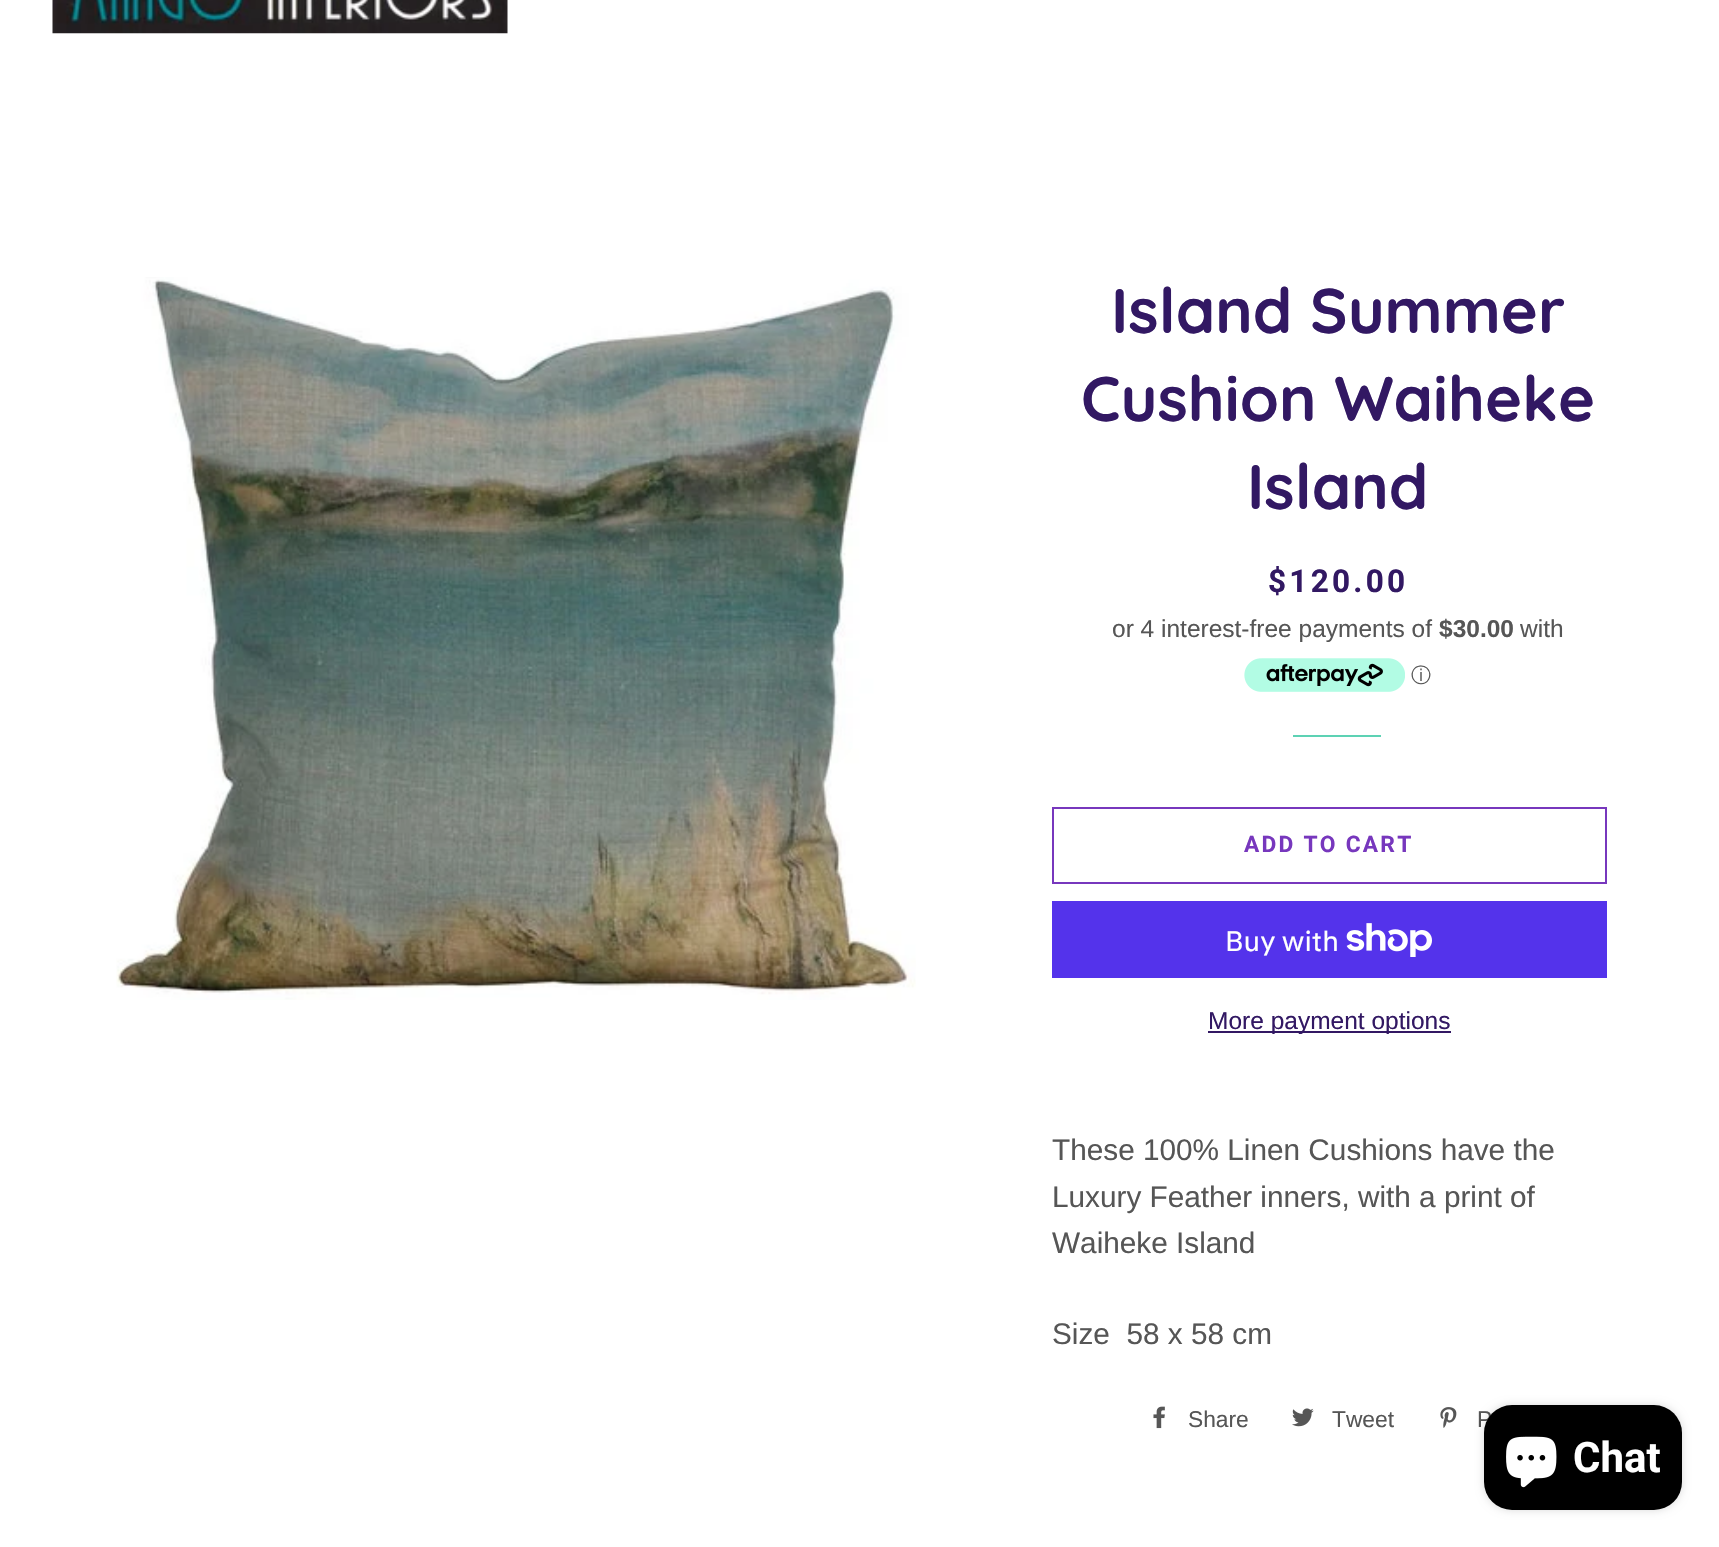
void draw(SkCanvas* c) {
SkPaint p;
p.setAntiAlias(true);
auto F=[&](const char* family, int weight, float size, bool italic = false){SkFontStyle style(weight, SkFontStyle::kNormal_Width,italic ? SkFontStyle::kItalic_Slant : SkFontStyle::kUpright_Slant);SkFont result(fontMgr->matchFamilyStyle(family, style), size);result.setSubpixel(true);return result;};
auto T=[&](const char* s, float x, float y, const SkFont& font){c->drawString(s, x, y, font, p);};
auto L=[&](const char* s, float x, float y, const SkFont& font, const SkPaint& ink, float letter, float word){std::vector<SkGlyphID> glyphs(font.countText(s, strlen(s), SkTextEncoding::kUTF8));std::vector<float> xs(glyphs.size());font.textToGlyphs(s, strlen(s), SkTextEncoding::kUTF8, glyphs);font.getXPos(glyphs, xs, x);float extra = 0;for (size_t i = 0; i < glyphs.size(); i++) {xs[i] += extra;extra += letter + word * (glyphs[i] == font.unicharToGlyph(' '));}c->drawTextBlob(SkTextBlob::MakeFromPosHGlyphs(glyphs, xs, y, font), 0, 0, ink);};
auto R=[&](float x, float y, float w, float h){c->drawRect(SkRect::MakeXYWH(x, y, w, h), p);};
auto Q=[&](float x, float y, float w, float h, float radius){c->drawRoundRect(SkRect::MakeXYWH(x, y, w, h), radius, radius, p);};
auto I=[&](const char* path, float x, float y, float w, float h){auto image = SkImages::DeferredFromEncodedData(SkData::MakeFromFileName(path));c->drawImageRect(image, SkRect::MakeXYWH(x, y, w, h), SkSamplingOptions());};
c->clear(0xffffffff);
I("1.png",52,0,456,34);
I("2.png",116,277,800,723);
auto f1 = F("Quicksand",700,63);
p.setColor(0xff321863);
T("Island Summer",1111,333,f1);
T("Cushion Waiheke",1081,421,f1);
T("Island",1247,509,f1);
auto f2 = F("Roboto",700,31.5);
L("$120.00",1268,592,f2,p,3.25,0);
auto f3 = F("Liberation Sans",400,24.5);
p.setColor(0xff565656);
T("or 4 interest-free payments of",1112,637,f3);
auto f4 = F("Liberation Sans",700,24.5);
T("$30.00",1439,637,f4);
T("with",1520,637,f3);
I("3.png",1244,658,161,34);
auto f5 = F("WenQuanYi Zen Hei",500,20);
T("ⓘ",1411,682,f5);
p.setColor(0xff5dd2b4);
R(1293,735,88,2);
p.setStroke(true);
p.setStrokeWidth(2);
p.setColor(0xff7737bd);
c->drawRect(SkRect::MakeXYWH(1053,808,553,75),p);
auto f6 = F("Roboto",700,22.75);
p.setStroke(false);
L("ADD TO CART",1244,852,f6,p,2.25,0);
p.setColor(0xff5433eb);
R(1052,901,555,77);
auto f7 = F("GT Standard",400,28);
p.setColor(0xffffffff);
T("Buy with",1225,951,f7);
I("4.png",1346,923,86,34);
p.setColor(0xff321863);
R(1208,1031,243,2);
T("More payment options",1208,1029,f3);
auto f8 = F("Liberation Sans",400,29.75);
p.setColor(0xff565656);
T("These 100% Linen Cushions have the",1052,1160,f8);
T("Luxury Feather inners, with a print of",1052,1207,f8);
T("Waiheke Island",1052,1253,f8);
T("Size  58 x 58 cm",1052,1344,f8);
I("5.png",1153,1406,12,23);
auto f9 = F("Liberation Sans",400,22.75);
T("Share",1188,1427,f9);
I("6.png",1292,1408,22,19);
T("Tweet",1332,1427,f9);
I("7.png",1440,1407,17,21);
T("P",1477,1427,f9);
p.setColor(0x26000000);
p.setMaskFilter(SkMaskFilter::MakeBlur(kNormal_SkBlurStyle, 4.5));
c->drawRoundRect(SkRect::MakeXYWH(1484,1405,198,105),28,28,p);
p.setMaskFilter(nullptr);
p.setColor(0xff000000);
Q(1484,1405,198,105,28);
I("8.png",1506,1436,51,52);
auto f10 = F("Roboto",700,42);
p.setColor(0xffffffff);
T("Chat",1573,1472,f10);
}
